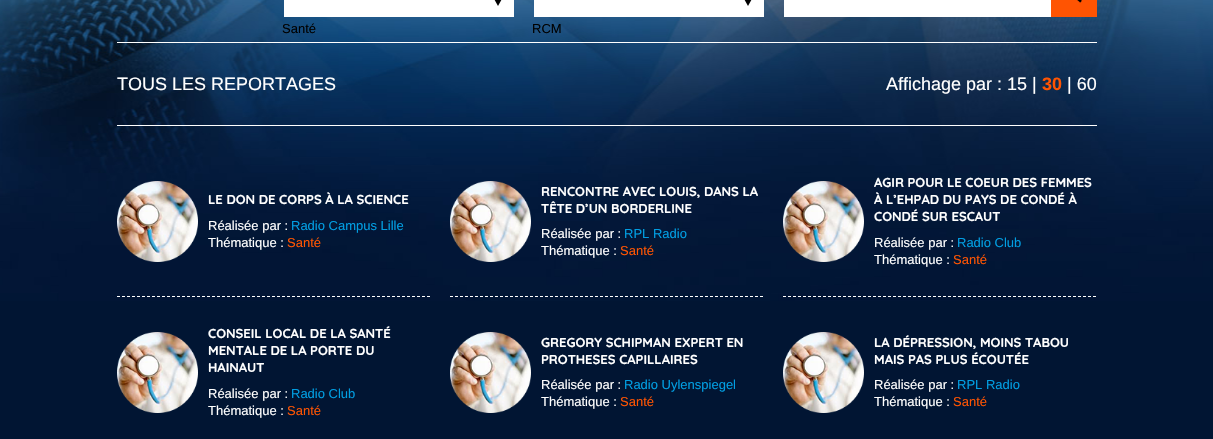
void draw(SkCanvas* c) {
SkPaint p;
p.setAntiAlias(true);
auto F=[&](const char* family, int weight, float size, bool italic = false){SkFontStyle style(weight, SkFontStyle::kNormal_Width,italic ? SkFontStyle::kItalic_Slant : SkFontStyle::kUpright_Slant);SkFont result(fontMgr->matchFamilyStyle(family, style), size);result.setSubpixel(true);return result;};
auto T=[&](const char* s, float x, float y, const SkFont& font){c->drawString(s, x, y, font, p);};
auto R=[&](float x, float y, float w, float h){c->drawRect(SkRect::MakeXYWH(x, y, w, h), p);};
auto I=[&](const char* path, float x, float y, float w, float h){auto image = SkImages::DeferredFromEncodedData(SkData::MakeFromFileName(path));c->drawImageRect(image, SkRect::MakeXYWH(x, y, w, h), SkSamplingOptions());};
auto P=[&](const char* data, bool evenOdd = false){SkPath result = *SkParsePath::FromSVGString(data);if (evenOdd) result.setFillType(SkPathFillType::kEvenOdd);return result;};
c->clear(0xff011533);
I("1.png",0,0,1213,301);
p.setColor(0xffffffff);
R(117,42,980,1);
R(784,0,267,17);
p.setColor(0xffff5402);
R(1051,0,46,17);
I("2.png",1077,0,5,3);
p.setColor(0xffffffff);
R(284,0,230,17);
I("3.png",494,0,8,6);
auto f1 = F("Liberation Sans",400,13);
p.setColor(0xff000000);
T("Santé",282,33,f1);
p.setColor(0xffffffff);
R(534,0,230,17);
I("3.png",744,0,8,6);
p.setColor(0xff000000);
T("RCM",532,33,f1);
p.setColor(0xffffffff);
R(117,125,980,1);
auto f2 = F("Liberation Sans",400,18);
T("TOUS LES REPORTAGES",117,90,f2);
T("Affichage par : 15 |",886,90,f2);
auto f3 = F("Liberation Sans",700,18);
p.setColor(0xffff5402);
T("30",1042,90,f3);
p.setColor(0xffffffff);
T("| 60",1067,90,f2);
p.setStroke(true);
p.setStrokeWidth(1);
p.setPathEffect(SkDashPathEffect::Make({{3,2}}, 0));
c->drawPath(P("M117 296.5h313"),p);
p.setPathEffect(nullptr);
I("4.png",117,181,81,81);
auto f4 = F("Quicksand",700,13);
p.setStroke(false);
T("LE DON DE CORPS À LA SCIENCE",208,204,f4);
T("Réalisée par :",208,230,f1);
p.setColor(0xff019ee2);
T("Radio Campus Lille",291,230,f1);
p.setColor(0xffffffff);
T("Thématique :",208,247,f1);
p.setColor(0xffff5402);
T("Santé",287,247,f1);
p.setStroke(true);
p.setColor(0xffffffff);
p.setPathEffect(SkDashPathEffect::Make({{3,2}}, 0));
c->drawPath(P("M450 296.5h313"),p);
p.setPathEffect(nullptr);
I("5.png",450,181,81,81);
p.setStroke(false);
T("RENCONTRE AVEC LOUIS, DANS LA",541,196,f4);
T("TÊTE D’UN BORDERLINE",541,213,f4);
T("Réalisée par :",541,238,f1);
p.setColor(0xff019ee2);
T("RPL Radio",624,238,f1);
p.setColor(0xffffffff);
T("Thématique :",541,255,f1);
p.setColor(0xffff5402);
T("Santé",620,255,f1);
p.setStroke(true);
p.setColor(0xffffffff);
p.setPathEffect(SkDashPathEffect::Make({{3,2}}, 0));
c->drawPath(P("M783 296.5h313"),p);
p.setPathEffect(nullptr);
I("6.png",783,181,81,81);
p.setStroke(false);
T("AGIR POUR LE COEUR DES FEMMES",874,187,f4);
T("À L’EHPAD DU PAYS DE CONDÉ À",874,204,f4);
T("CONDÉ SUR ESCAUT",874,221,f4);
T("Réalisée par :",874,247,f1);
p.setColor(0xff019ee2);
T("Radio Club",957,247,f1);
p.setColor(0xffffffff);
T("Thématique :",874,264,f1);
p.setColor(0xffff5402);
T("Santé",953,264,f1);
I("7.png",117,332,81,81);
p.setColor(0xffffffff);
T("CONSEIL LOCAL DE LA SANTÉ",208,338,f4);
T("MENTALE DE LA PORTE DU",208,355,f4);
T("HAINAUT",208,372,f4);
T("Réalisée par :",208,398,f1);
p.setColor(0xff019ee2);
T("Radio Club",291,398,f1);
p.setColor(0xffffffff);
T("Thématique :",208,415,f1);
p.setColor(0xffff5402);
T("Santé",287,415,f1);
I("7.png",450,332,81,81);
p.setColor(0xffffffff);
T("GREGORY SCHIPMAN EXPERT EN",541,347,f4);
T("PROTHESES CAPILLAIRES",541,364,f4);
T("Réalisée par :",541,389,f1);
p.setColor(0xff019ee2);
T("Radio Uylenspiegel",624,389,f1);
p.setColor(0xffffffff);
T("Thématique :",541,406,f1);
p.setColor(0xffff5402);
T("Santé",620,406,f1);
I("7.png",783,332,81,81);
p.setColor(0xffffffff);
T("LA DÉPRESSION, MOINS TABOU",874,347,f4);
T("MAIS PAS PLUS ÉCOUTÉE",874,364,f4);
T("Réalisée par :",874,389,f1);
p.setColor(0xff019ee2);
T("RPL Radio",957,389,f1);
p.setColor(0xffffffff);
T("Thématique :",874,406,f1);
p.setColor(0xffff5402);
T("Santé",953,406,f1);
}
